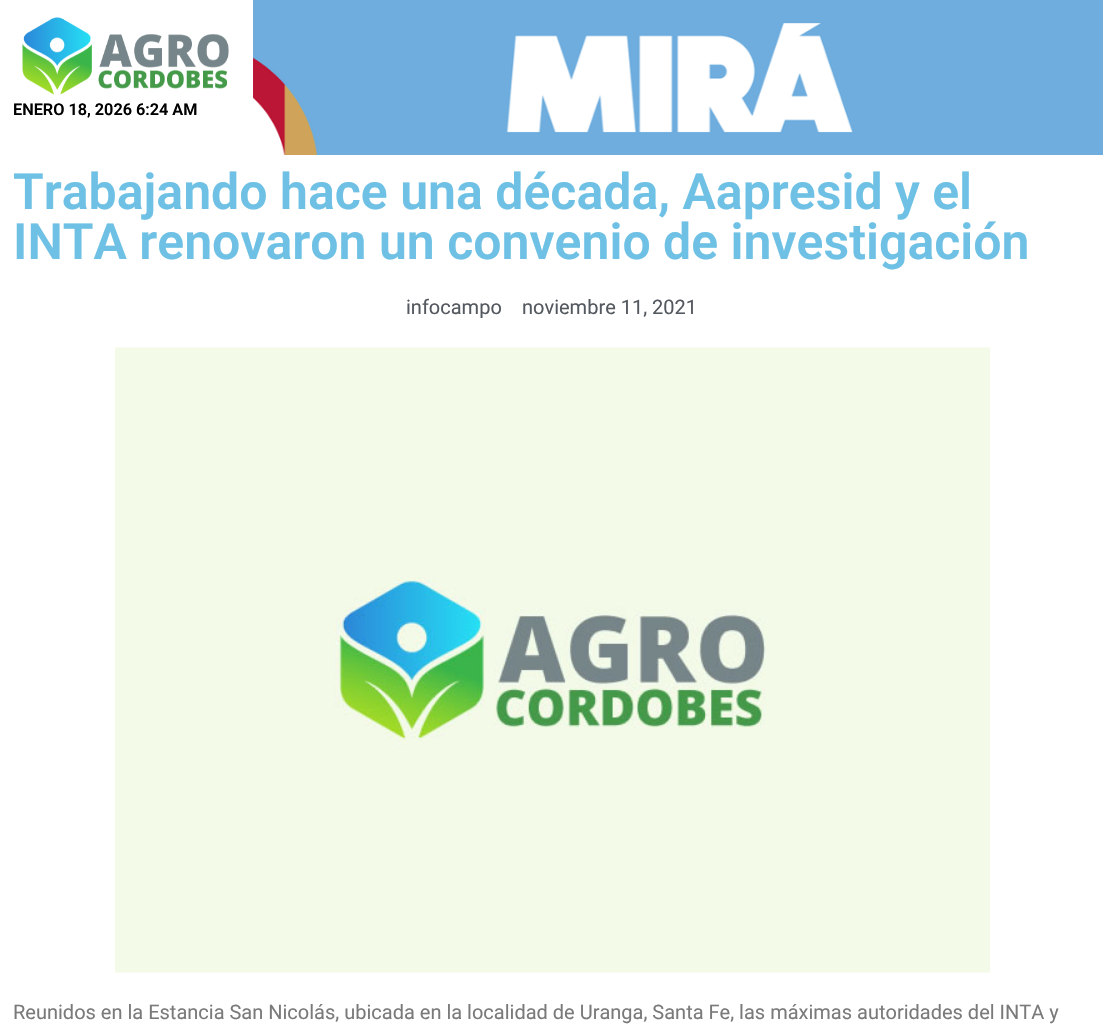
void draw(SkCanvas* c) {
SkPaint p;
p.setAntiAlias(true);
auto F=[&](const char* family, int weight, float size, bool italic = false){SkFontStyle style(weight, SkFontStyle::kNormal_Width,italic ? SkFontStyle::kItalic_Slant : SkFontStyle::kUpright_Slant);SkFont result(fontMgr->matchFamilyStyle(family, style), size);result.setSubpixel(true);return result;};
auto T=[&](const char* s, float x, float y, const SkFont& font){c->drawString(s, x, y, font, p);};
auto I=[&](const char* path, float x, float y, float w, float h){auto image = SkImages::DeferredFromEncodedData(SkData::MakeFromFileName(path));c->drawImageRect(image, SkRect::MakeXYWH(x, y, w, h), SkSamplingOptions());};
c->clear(0xffffffff);
I("1.png",22,17,207,78);
auto f1 = F("Roboto",600,16.25);
p.setColor(0xff000000);
T("ENERO 18, 2026 6:24 AM",13,115,f1);
I("2.png",253,0,850,155);
auto f2 = F("Roboto",600,50);
p.setColor(0xff6ec1e4);
T("Trabajando hace una década, Aapresid y el",13,209,f2);
T("INTA renovaron un convenio de investigación",13,259,f2);
auto f3 = F("Roboto",400,20);
p.setColor(0xff54595f);
T("infocampo",406,314,f3);
T("noviembre 11, 2021",522,314,f3);
I("3.png",115,347,875,626);
p.setColor(0xff7a7a7a);
T("Reunidos en la Estancia San Nicolás, ubicada en la localidad de Uranga, Santa Fe, las máximas autoridades del INTA y",13,1019,f3);
}
